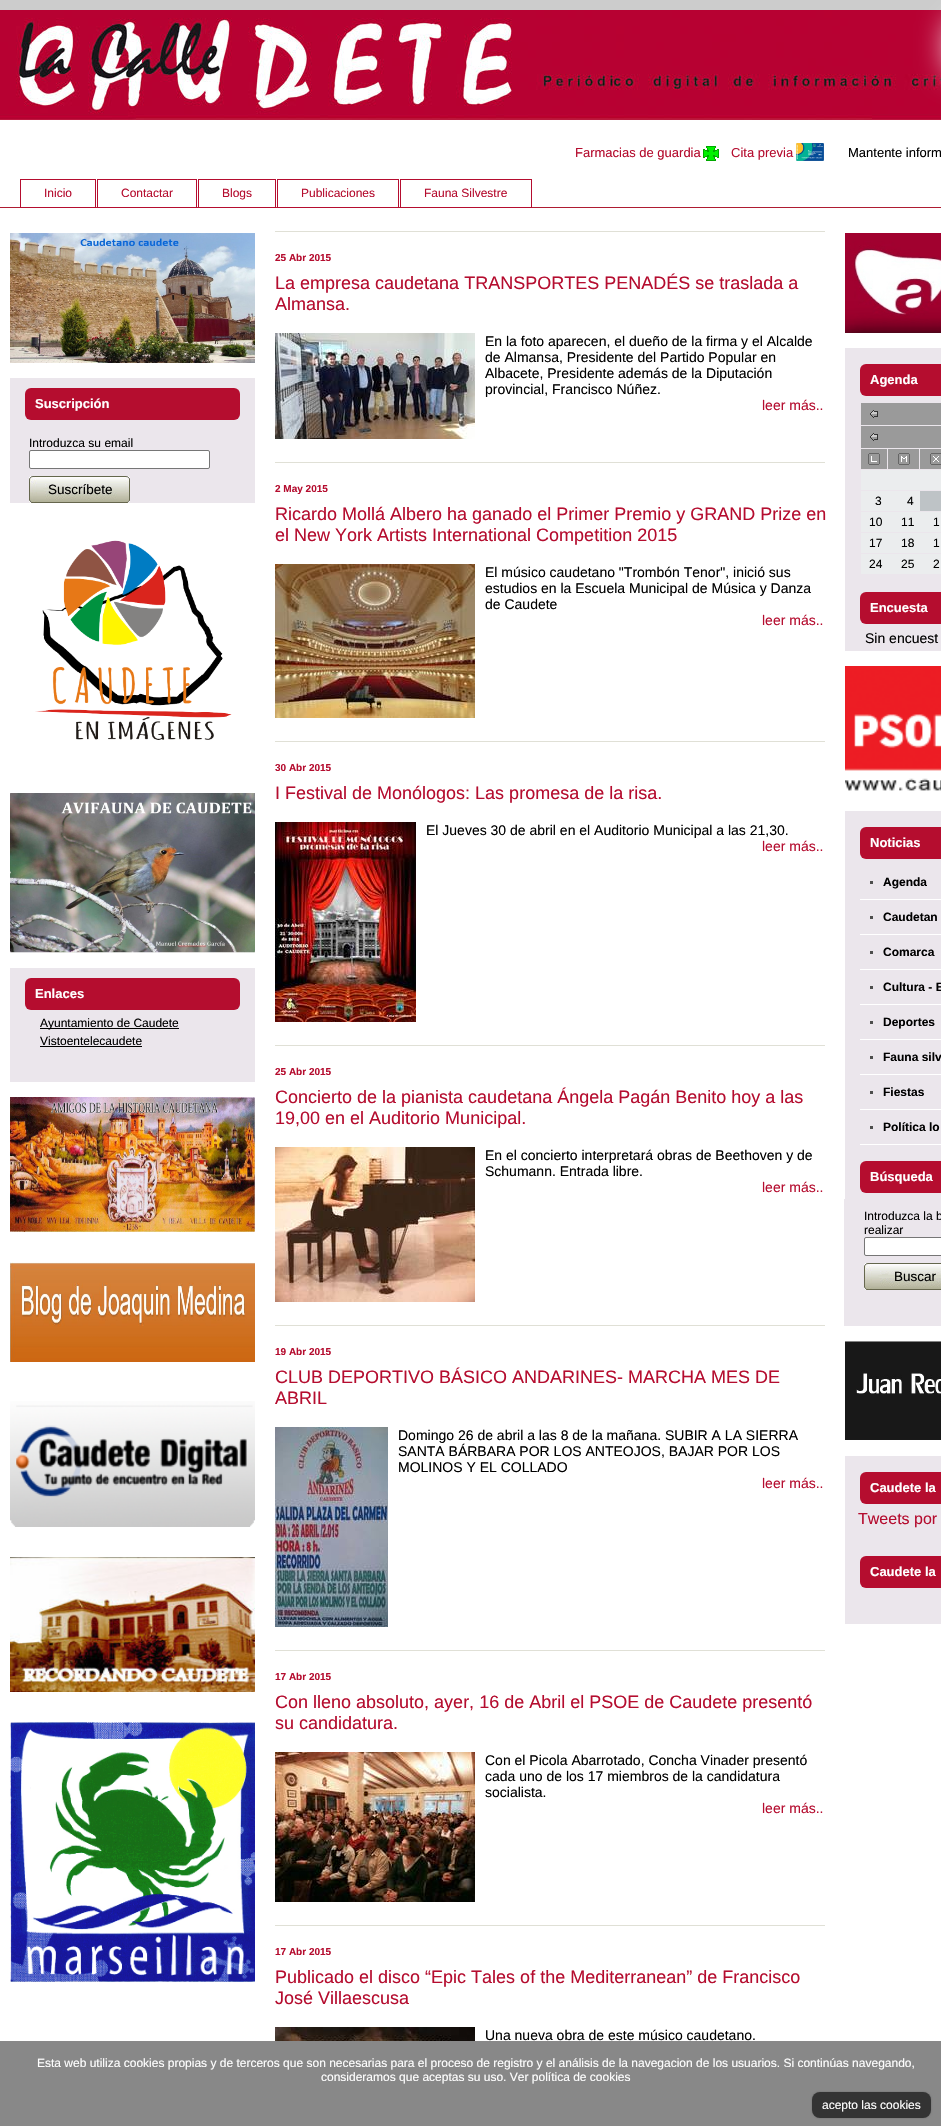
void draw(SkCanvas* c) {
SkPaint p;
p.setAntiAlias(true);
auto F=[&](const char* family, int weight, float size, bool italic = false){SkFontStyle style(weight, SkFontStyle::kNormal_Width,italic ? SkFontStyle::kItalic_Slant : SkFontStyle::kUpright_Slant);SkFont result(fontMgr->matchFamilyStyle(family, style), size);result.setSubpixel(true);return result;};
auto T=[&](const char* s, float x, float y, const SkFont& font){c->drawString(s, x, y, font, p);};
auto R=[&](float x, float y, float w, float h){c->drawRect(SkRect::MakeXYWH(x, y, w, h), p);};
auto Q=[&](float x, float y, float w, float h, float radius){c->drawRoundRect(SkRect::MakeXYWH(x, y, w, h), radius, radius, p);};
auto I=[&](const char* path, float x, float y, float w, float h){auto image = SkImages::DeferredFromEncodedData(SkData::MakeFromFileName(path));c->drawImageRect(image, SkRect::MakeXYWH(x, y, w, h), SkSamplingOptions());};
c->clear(0xffcccccc);
p.setColor(0xffffffff);
R(0,120,941,1921);
p.setColor(0xffae1c32);
R(0,207,941,1);
I("1.png",0,10,941,110);
p.setColor(0xffffffff);
p.setMaskFilter(SkMaskFilter::MakeBlur(kNormal_SkBlurStyle, 15));
c->drawRoundRect(SkRect::MakeXYWH(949,20,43,52),6,6,p);
p.setMaskFilter(nullptr);
auto f1 = F("Liberation Sans",400,13);
p.setColor(0xffb50d2f);
T("Farmacias de guardia",575,157,f1);
I("2.png",703,146,16,15);
T("Cita previa",731,157,f1);
I("3.png",796,143,28,18);
p.setColor(0xff000000);
T("Mantente inform",848,157,f1);
p.setStroke(true);
p.setStrokeWidth(1);
p.setColor(0xffb50d2f);
c->drawRect(SkRect::MakeXYWH(20.5,179.5,75,28),p);
auto f2 = F("Liberation Sans",400,12);
p.setStroke(false);
T("Inicio",44,197,f2);
p.setStroke(true);
c->drawRect(SkRect::MakeXYWH(97.5,179.5,99,28),p);
p.setStroke(false);
T("Contactar",121,197,f2);
p.setStroke(true);
c->drawRect(SkRect::MakeXYWH(198.5,179.5,77,28),p);
p.setStroke(false);
T("Blogs",222,197,f2);
p.setStroke(true);
c->drawRect(SkRect::MakeXYWH(277.5,179.5,121,28),p);
p.setStroke(false);
T("Publicaciones",301,197,f2);
p.setStroke(true);
c->drawRect(SkRect::MakeXYWH(400.5,179.5,131,28),p);
p.setStroke(false);
T("Fauna Silvestre",424,197,f2);
p.setColor(0xffebe6ec);
R(10,378,245,704);
I("4.png",10,233,245,130);
p.setColor(0xffb50d2f);
Q(25,388,215,32,6);
auto f3 = F("Liberation Sans",700,13);
p.setColor(0xffffffff);
T("Suscripción",35,408,f3);
p.setColor(0xff000000);
T("Introduzca su email",29,447,f2);
p.setColor(0xffffffff);
c->drawRoundRect(SkRect::MakeXYWH(29.5,450.5,180,18),1.5,1.5,p);
p.setStroke(true);
p.setColor(0xff767676);
c->drawRoundRect(SkRect::MakeXYWH(29.5,450.5,180,18),1.5,1.5,p);
I("5.png",29,476,101,27);
auto f4 = F("Liberation Sans",400,13.5);
p.setStroke(false);
p.setColor(0xff000000);
T("Suscríbete",48,494,f4);
p.setColor(0xffffffff);
R(10,503,245,465);
I("6.png",35,540,197,200);
I("7.png",10,793,245,160);
p.setColor(0xffb50d2f);
Q(25,978,215,32,6);
p.setColor(0xffffffff);
T("Enlaces",35,998,f3);
p.setColor(0xff000000);
R(40,1028,139,1);
T("Ayuntamiento de Caudete",40,1027,f2);
T("Vistoentelecaudete",40,1045,f2);
R(40,1046,102,1);
I("8.png",10,1097,245,135);
I("9.png",10,1262,245,100);
I("10.png",10,1401,245,126);
I("11.png",10,1557,245,135);
I("12.png",10,1722,245,260);
p.setColor(0xffe0e0d6);
R(275,231,550,1);
auto f5 = F("Liberation Sans",700,10);
p.setColor(0xffb50d2f);
T("25 Abr 2015",275,261,f5);
auto f6 = F("Liberation Sans",400,18);
T("La empresa caudetana TRANSPORTES PENADÉS se traslada a",275,289,f6);
T("Almansa.",275,310,f6);
I("13.png",275,333,200,106);
auto f7 = F("Liberation Sans",400,14);
p.setColor(0xff000000);
T("En la foto aparecen, el dueño de la firma y el Alcalde",485,346,f7);
T("de Almansa, Presidente del Partido Popular en",485,362,f7);
T("Albacete, Presidente además de la Diputación",485,378,f7);
T("provincial, Francisco Núñez.",485,394,f7);
p.setColor(0xffb50d2f);
T("leer más..",762,410,f7);
p.setColor(0xffe0e0d6);
R(275,462,550,1);
p.setColor(0xffb50d2f);
T("2 May 2015",275,492,f5);
T("Ricardo Mollá Albero ha ganado el Primer Premio y GRAND Prize en",275,520,f6);
T("el New York Artists International Competition 2015",275,541,f6);
I("14.png",275,564,200,154);
p.setColor(0xff000000);
T("El músico caudetano \"Trombón Tenor\", inició sus",485,577,f7);
T("estudios en la Escuela Municipal de Música y Danza",485,593,f7);
T("de Caudete",485,609,f7);
p.setColor(0xffb50d2f);
T("leer más..",762,625,f7);
p.setColor(0xffe0e0d6);
R(275,741,550,1);
p.setColor(0xffb50d2f);
T("30 Abr 2015",275,771,f5);
T("I Festival de Monólogos: Las promesa de la risa.",275,799,f6);
I("15.png",275,822,141,200);
p.setColor(0xff000000);
T("El Jueves 30 de abril en el Auditorio Municipal a las 21,30.",426,835,f7);
p.setColor(0xffb50d2f);
T("leer más..",762,851,f7);
p.setColor(0xffe0e0d6);
R(275,1045,550,1);
p.setColor(0xffb50d2f);
T("25 Abr 2015",275,1075,f5);
T("Concierto de la pianista caudetana Ángela Pagán Benito hoy a las",275,1103,f6);
T("19,00 en el Auditorio Municipal.",275,1124,f6);
I("16.png",275,1147,200,155);
p.setColor(0xff000000);
T("En el concierto interpretará obras de Beethoven y de",485,1160,f7);
T("Schumann. Entrada libre.",485,1176,f7);
p.setColor(0xffb50d2f);
T("leer más..",762,1192,f7);
p.setColor(0xffe0e0d6);
R(275,1325,550,1);
p.setColor(0xffb50d2f);
T("19 Abr 2015",275,1355,f5);
T("CLUB DEPORTIVO BÁSICO ANDARINES- MARCHA MES DE",275,1383,f6);
T("ABRIL",275,1404,f6);
I("17.png",275,1427,113,200);
p.setColor(0xff000000);
T("Domingo 26 de abril a las 8 de la mañana. SUBIR A LA SIERRA",398,1440,f7);
T("SANTA BÁRBARA POR LOS ANTEOJOS, BAJAR POR LOS",398,1456,f7);
T("MOLINOS Y EL COLLADO",398,1472,f7);
p.setColor(0xffb50d2f);
T("leer más..",762,1488,f7);
p.setColor(0xffe0e0d6);
R(275,1650,550,1);
p.setColor(0xffb50d2f);
T("17 Abr 2015",275,1680,f5);
T("Con lleno absoluto, ayer, 16 de Abril el PSOE de Caudete presentó",275,1708,f6);
T("su candidatura.",275,1729,f6);
I("18.png",275,1752,200,150);
p.setColor(0xff000000);
T("Con el Picola Abarrotado, Concha Vinader presentó",485,1765,f7);
T("cada uno de los 17 miembros de la candidatura",485,1781,f7);
T("socialista.",485,1797,f7);
p.setColor(0xffb50d2f);
T("leer más..",762,1813,f7);
p.setColor(0xffe0e0d6);
R(275,1925,550,1);
p.setColor(0xffb50d2f);
T("17 Abr 2015",275,1955,f5);
T("Publicado el disco “Epic Tales of the Mediterranean” de Francisco",275,1983,f6);
T("José Villaescusa",275,2004,f6);
I("19.png",275,2027,200,14);
p.setColor(0xff000000);
T("Una nueva obra de este músico caudetano.",485,2040,f7);
p.setColor(0xffebe6ec);
R(845,348,96,1276);
I("20.png",845,233,96,100);
p.setColor(0xffb50d2f);
Q(860,364,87,32,6);
p.setColor(0xffffffff);
T("Agenda",870,384,f3);
p.setColor(0xff9a9a9a);
R(861,403,80,22);
I("21.png",870,410,8,8);
R(861,426,80,22);
I("21.png",870,433,8,8);
R(861,449,26,20);
I("22.png",868,453,12,12);
R(888,449,31,20);
I("23.png",898,453,12,12);
R(920,449,21,20);
I("24.png",930,453,11,12);
p.setColor(0xffebedee);
R(861,470,80,20);
R(861,491,59,20);
p.setColor(0xff000000);
T("3",875,505,f2);
T("4",907,505,f2);
p.setColor(0xffbec3c6);
R(920,491,21,20);
p.setColor(0xffebedee);
R(861,512,80,20);
p.setColor(0xff000000);
T("10",869,526,f2);
T("11",901,526,f2);
T("1",933,526,f2);
p.setColor(0xffebedee);
R(861,533,80,20);
p.setColor(0xff000000);
T("17",869,547,f2);
T("18",901,547,f2);
T("1",933,547,f2);
p.setColor(0xffebedee);
R(861,554,80,20);
p.setColor(0xff000000);
T("24",869,568,f2);
T("25",901,568,f2);
T("2",933,568,f2);
p.setColor(0xffb50d2f);
Q(860,592,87,32,6);
p.setColor(0xffffffff);
T("Encuesta",870,612,f3);
p.setColor(0xff000000);
T("Sin encuest",865,643,f7);
p.setColor(0xffffffff);
R(845,651,96,160);
I("25.png",845,666,96,125);
p.setColor(0xffb50d2f);
Q(860,827,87,32,6);
p.setColor(0xffffffff);
T("Noticias",870,847,f3);
p.setColor(0xff4d4d4d);
R(870,881,3,3);
p.setColor(0xffffffff);
R(860,899,81,1);
auto f8 = F("Liberation Sans",700,12);
p.setColor(0xff000000);
T("Agenda",883,886,f8);
p.setColor(0xff4d4d4d);
R(870,916,3,3);
p.setColor(0xffffffff);
R(860,934,81,1);
p.setColor(0xff000000);
T("Caudetan",883,921,f8);
p.setColor(0xff4d4d4d);
R(870,951,3,3);
p.setColor(0xffffffff);
R(860,969,81,1);
p.setColor(0xff000000);
T("Comarca",883,956,f8);
p.setColor(0xff4d4d4d);
R(870,986,3,3);
p.setColor(0xffffffff);
R(860,1004,81,1);
p.setColor(0xff000000);
T("Cultura - E",883,991,f8);
p.setColor(0xff4d4d4d);
R(870,1021,3,3);
p.setColor(0xffffffff);
R(860,1039,81,1);
p.setColor(0xff000000);
T("Deportes",883,1026,f8);
p.setColor(0xff4d4d4d);
R(870,1056,3,3);
p.setColor(0xffffffff);
R(860,1074,81,1);
p.setColor(0xff000000);
T("Fauna silv",883,1061,f8);
p.setColor(0xff4d4d4d);
R(870,1091,3,3);
p.setColor(0xffffffff);
R(860,1109,81,1);
p.setColor(0xff000000);
T("Fiestas",883,1096,f8);
p.setColor(0xff4d4d4d);
R(870,1126,3,3);
p.setColor(0xffffffff);
R(860,1144,81,1);
p.setColor(0xff000000);
T("Política lo",883,1131,f8);
p.setColor(0xffb50d2f);
Q(860,1161,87,32,6);
p.setColor(0xffffffff);
T("Búsqueda",870,1181,f3);
p.setColor(0xffebe6ec);
R(844,1199,1,127);
p.setColor(0xff000000);
T("Introduzca la b",864,1220,f2);
T("realizar",864,1234,f2);
p.setColor(0xffffffff);
c->drawRoundRect(SkRect::MakeXYWH(864.5,1237.5,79,18),1.5,1.5,p);
p.setStroke(true);
p.setColor(0xff767676);
c->drawRoundRect(SkRect::MakeXYWH(864.5,1237.5,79,18),1.5,1.5,p);
I("26.png",864,1263,77,27);
p.setStroke(false);
p.setColor(0xff000000);
T("Buscar",894,1281,f4);
p.setColor(0xffffffff);
R(845,1326,96,130);
I("27.png",845,1341,96,99);
p.setColor(0xffb50d2f);
Q(860,1472,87,32,6);
p.setColor(0xffffffff);
T("Caudete la",870,1492,f3);
auto f9 = F("Liberation Sans",400,16);
p.setColor(0xffb50d2f);
T("Tweets por",858,1524,f9);
Q(860,1556,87,32,6);
p.setColor(0xffffffff);
T("Caudete la",870,1576,f3);
p.setColor(0xff888888);
R(0,2041,941,85);
p.setColor(0xffffffff);
T("Esta web utiliza cookies propias y de terceros que son necesarias para el proceso de registro y el análisis de la navegacion de los usuarios. Si continúas navegando,",37,2067,f2);
T("consideramos que aceptas su uso. Ver política de cookies",321,2081,f2);
p.setColor(0x40000000);
p.setMaskFilter(SkMaskFilter::MakeBlur(kNormal_SkBlurStyle, 1));
c->drawRoundRect(SkRect::MakeXYWH(812,2092,119,26),8,8,p);
p.setMaskFilter(nullptr);
p.setColor(0xff333333);
Q(812,2092,119,26,8);
p.setColor(0xffffffff);
T("acepto las cookies",822,2109,f2);
}
